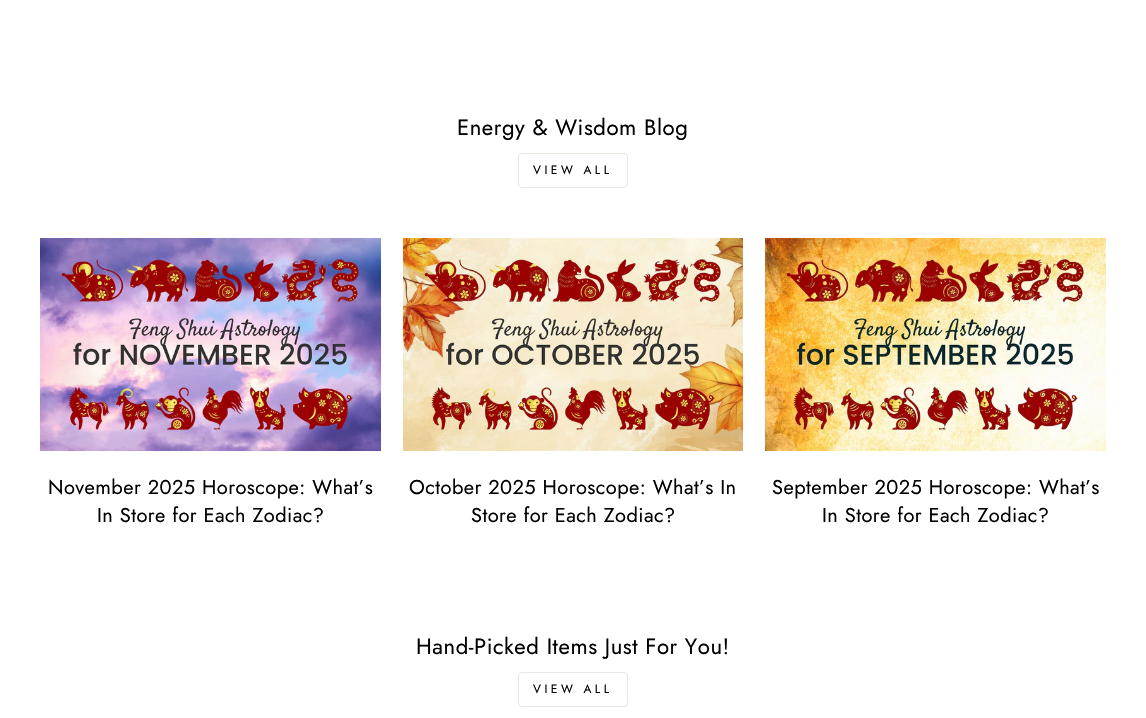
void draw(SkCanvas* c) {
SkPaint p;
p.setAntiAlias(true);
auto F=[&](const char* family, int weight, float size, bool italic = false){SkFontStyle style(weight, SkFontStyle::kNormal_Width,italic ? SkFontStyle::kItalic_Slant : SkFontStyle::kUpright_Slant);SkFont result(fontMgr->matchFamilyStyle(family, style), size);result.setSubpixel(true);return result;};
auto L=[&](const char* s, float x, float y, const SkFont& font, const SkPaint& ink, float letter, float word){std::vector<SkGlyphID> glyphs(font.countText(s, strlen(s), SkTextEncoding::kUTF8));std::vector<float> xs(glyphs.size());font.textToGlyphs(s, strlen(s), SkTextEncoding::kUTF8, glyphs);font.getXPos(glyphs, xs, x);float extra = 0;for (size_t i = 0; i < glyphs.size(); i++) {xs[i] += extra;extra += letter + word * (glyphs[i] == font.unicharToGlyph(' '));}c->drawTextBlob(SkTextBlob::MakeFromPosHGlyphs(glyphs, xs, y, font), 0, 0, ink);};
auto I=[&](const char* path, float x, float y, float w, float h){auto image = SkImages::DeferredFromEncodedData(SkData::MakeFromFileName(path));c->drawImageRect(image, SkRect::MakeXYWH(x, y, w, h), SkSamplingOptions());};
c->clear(0xffffffff);
auto f1 = F("Jost",400,22.1);
p.setColor(0xff000000);
L("Energy & Wisdom Blog",457,135,f1,p,.55,0);
p.setStroke(true);
p.setStrokeWidth(1);
p.setColor(0xffe8e8e1);
c->drawRoundRect(SkRect::MakeXYWH(518.5,153.5,109,34),3.5,3.5,p);
auto f2 = F("Jost",400,12);
p.setStroke(false);
p.setColor(0xff000000);
L("VIEW ALL",533,174,f2,p,3.5,0);
I("1.png",40,238,341,213);
auto f3 = F("Jost",400,20);
L("November 2025 Horoscope: What’s",48,494,f3,p,.45,0);
L("In Store for Each Zodiac?",97,522,f3,p,.45,0);
I("2.png",403,238,340,213);
L("October 2025 Horoscope: What’s In",409,494,f3,p,.45,0);
L("Store for Each Zodiac?",471,522,f3,p,.45,0);
I("3.png",765,238,341,213);
L("September 2025 Horoscope: What’s",772,494,f3,p,.45,0);
L("In Store for Each Zodiac?",822,522,f3,p,.45,0);
L("Hand-Picked Items Just For You!",416,654,f1,p,.55,0);
p.setStroke(true);
p.setColor(0xffe8e8e1);
c->drawRoundRect(SkRect::MakeXYWH(518.5,672.5,109,34),3.5,3.5,p);
p.setStroke(false);
p.setColor(0xff000000);
L("VIEW ALL",533,693,f2,p,3.5,0);
}
